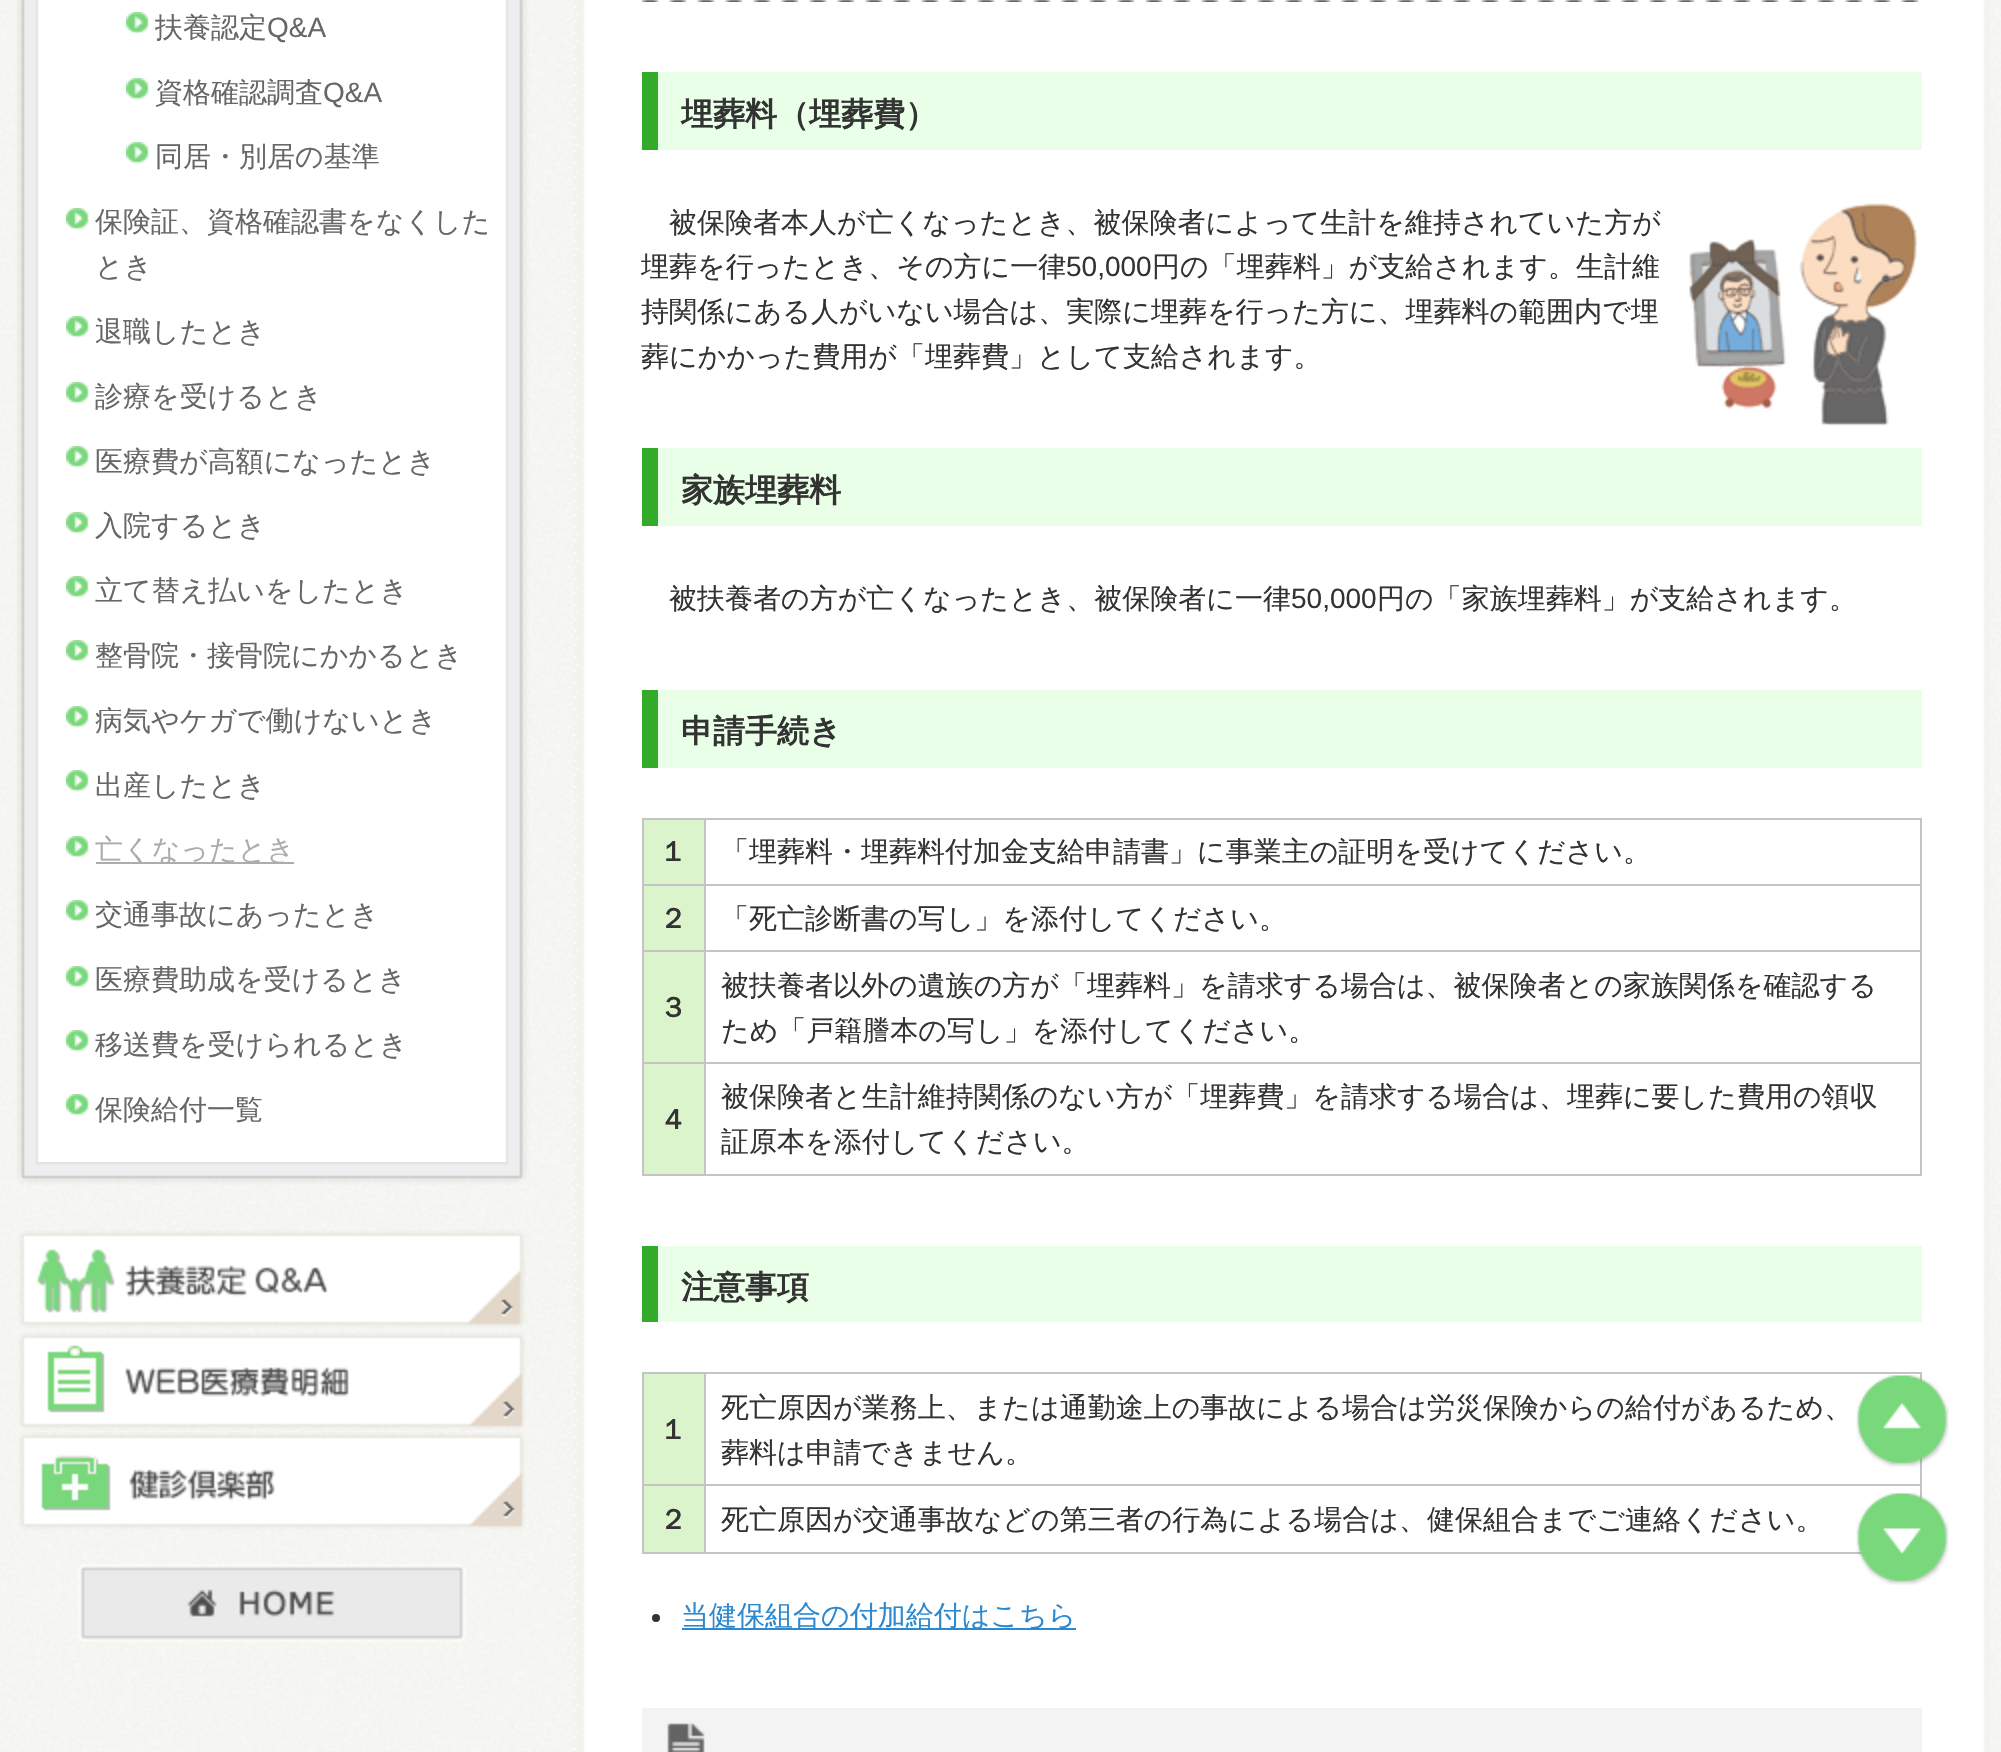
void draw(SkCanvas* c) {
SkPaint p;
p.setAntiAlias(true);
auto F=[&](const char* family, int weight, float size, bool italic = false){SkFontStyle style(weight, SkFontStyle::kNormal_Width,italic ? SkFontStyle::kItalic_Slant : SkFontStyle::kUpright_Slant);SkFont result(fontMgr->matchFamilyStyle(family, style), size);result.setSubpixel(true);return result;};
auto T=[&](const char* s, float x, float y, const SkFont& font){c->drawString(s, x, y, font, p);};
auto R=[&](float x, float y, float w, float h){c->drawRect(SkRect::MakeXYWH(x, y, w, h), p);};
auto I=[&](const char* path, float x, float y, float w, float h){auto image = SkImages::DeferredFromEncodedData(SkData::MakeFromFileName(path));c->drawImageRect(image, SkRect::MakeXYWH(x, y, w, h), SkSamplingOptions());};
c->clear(0xffffffff);
I("1.png",0,0,2001,1752);
I("2.png",15,0,515,1188);
I("3.png",126,12,23,22);
auto f1 = F("WenQuanYi Zen Hei",500,28);
p.setColor(0xff676767);
T("扶養認定",155,37,f1);
auto f2 = F("Liberation Sans",400,28);
T("Q&A",267,37,f2);
I("3.png",126,78,23,22);
T("資格確認調査",155,102,f1);
T("Q&A",323,102,f2);
I("3.png",126,142,23,22);
T("同居・別居の基準",155,166,f1);
I("3.png",66,208,23,22);
T("保険証、資格確認書をなくした",95,231,f1);
T("とき",95,276,f1);
I("3.png",66,316,23,22);
T("退職したとき",95,341,f1);
I("3.png",66,382,23,22);
T("診療を受けるとき",95,406,f1);
I("3.png",66,446,23,22);
T("医療費が高額になったとき",95,471,f1);
I("3.png",66,512,23,22);
T("入院するとき",95,535,f1);
I("3.png",66,576,23,22);
T("立て替え払いをしたとき",95,600,f1);
I("3.png",66,640,23,22);
T("整骨院・接骨院にかかるとき",95,665,f1);
I("3.png",66,706,23,22);
T("病気やケガで働けないとき",95,730,f1);
I("3.png",66,770,23,22);
T("出産したとき",95,795,f1);
I("3.png",66,836,23,22);
p.setColor(0xffacacac);
R(96,862,198,2);
T("亡くなったとき",95,859,f1);
I("3.png",66,900,23,22);
p.setColor(0xff676767);
T("交通事故にあったとき",95,924,f1);
I("3.png",66,966,23,22);
T("医療費助成を受けるとき",95,989,f1);
I("3.png",66,1030,23,22);
T("移送費を受けられるとき",95,1054,f1);
I("3.png",66,1094,23,22);
T("保険給付一覧",95,1119,f1);
I("4.png",15,1162,513,26);
I("5.png",14,1228,516,101);
I("6.png",17,1330,513,102);
I("7.png",18,1432,512,102);
I("8.png",78,1564,388,78);
I("9.png",574,0,1416,1752);
I("10.png",642,0,1277,2);
p.setColor(0xffe9ffe7);
R(658,72,1264,78);
p.setColor(0xff33ab28);
R(642,72,16,78);
auto f3 = F("WenQuanYi Zen Hei",700,32);
p.setColor(0xff333333);
T("埋葬料（埋葬費）",681,125,f3);
T("被保険者本人が亡くなったとき、被保険者によって生計を維持されていた方が",669,232,f1);
T("埋葬を行ったとき、その方に一律",641,276,f1);
T("50,000",1066,276,f2);
T("円の「埋葬料」が支給されます。生計維",1152,276,f1);
T("持関係にある人がいない場合は、実際に埋葬を行った方に、埋葬料の範囲内で埋",641,321,f1);
T("葬にかかった費用が「埋葬費」として支給されます。",641,366,f1);
I("11.png",1689,203,228,223);
p.setColor(0xffe9ffe7);
R(658,448,1264,78);
p.setColor(0xff33ab28);
R(642,448,16,78);
p.setColor(0xff333333);
T("家族埋葬料",681,501,f3);
T("被扶養者の方が亡くなったとき、被保険者に一律",669,608,f1);
T("50,000",1291,608,f2);
T("円の「家族埋葬料」が支給されます。",1377,608,f1);
p.setColor(0xffe9ffe7);
R(658,690,1264,78);
p.setColor(0xff33ab28);
R(642,690,16,78);
p.setColor(0xff333333);
T("申請手続き",681,742,f3);
p.setColor(0xffc4c4c4);
R(642,818,1280,2);
R(1920,818,2,358);
p.setColor(0xffdcf4cc);
R(644,820,60,64);
p.setColor(0xffc4c4c4);
R(704,1174,1218,2);
R(704,1062,2,114);
R(704,1062,1218,2);
R(704,950,2,114);
R(704,950,1218,2);
R(704,884,2,68);
R(704,884,1218,2);
R(704,818,2,68);
R(642,1174,64,2);
R(642,1062,2,114);
R(642,1062,64,2);
R(642,950,2,114);
R(642,950,64,2);
R(642,884,2,68);
R(642,884,64,2);
R(642,818,2,68);
auto f4 = F("WenQuanYi Zen Hei",700,28);
p.setColor(0xff333333);
T("１",659,861,f4);
T("「埋葬料・埋葬料付加金支給申請書」に事業主の証明を受けてください。",721,861,f1);
p.setColor(0xffdcf4cc);
R(644,886,60,64);
p.setColor(0xff333333);
T("２",659,928,f4);
T("「死亡診断書の写し」を添付してください。",721,928,f1);
p.setColor(0xffdcf4cc);
R(644,952,60,110);
p.setColor(0xff333333);
T("３",659,1017,f4);
T("被扶養者以外の遺族の方が「埋葬料」を請求する場合は、被保険者との家族関係を確認する",721,995,f1);
T("ため「戸籍謄本の写し」を添付してください。",721,1040,f1);
p.setColor(0xffdcf4cc);
R(644,1064,60,110);
p.setColor(0xff333333);
T("４",659,1129,f4);
T("被保険者と生計維持関係のない方が「埋葬費」を請求する場合は、埋葬に要した費用の領収",721,1106,f1);
T("証原本を添付してください。",721,1151,f1);
p.setColor(0xffe9ffe7);
R(658,1246,1264,76);
p.setColor(0xff33ab28);
R(642,1246,16,76);
p.setColor(0xff333333);
T("注意事項",681,1298,f3);
p.setColor(0xffc4c4c4);
R(642,1372,1280,2);
R(1920,1372,2,128);
p.setColor(0xffdcf4cc);
R(644,1374,60,110);
p.setColor(0xffc4c4c4);
R(704,1552,1159,2);
R(704,1484,2,70);
R(704,1484,1218,2);
R(704,1372,2,114);
R(642,1552,64,2);
R(642,1484,2,70);
R(642,1484,64,2);
R(642,1372,2,114);
p.setColor(0xff333333);
T("１",659,1439,f4);
T("死亡原因が業務上、または通勤途上の事故による場合は労災保険からの給付があるため、",721,1417,f1);
T("葬料は申請できません。",721,1462,f1);
p.setColor(0xffdcf4cc);
R(644,1486,60,66);
p.setColor(0xff333333);
T("２",659,1529,f4);
T("死亡原因が交通事故などの第三者の行為による場合は、健保組合までご連絡ください。",721,1529,f1);
c->drawCircle(656,1618,4,p);
p.setColor(0xff2c89d0);
R(682,1628,394,2);
T("当健保組合の付加給付はこちら",681,1625,f1);
I("12.png",642,1708,1280,44);
I("13.png",1856,1375,93,92);
I("14.png",1856,1493,93,92);
}
